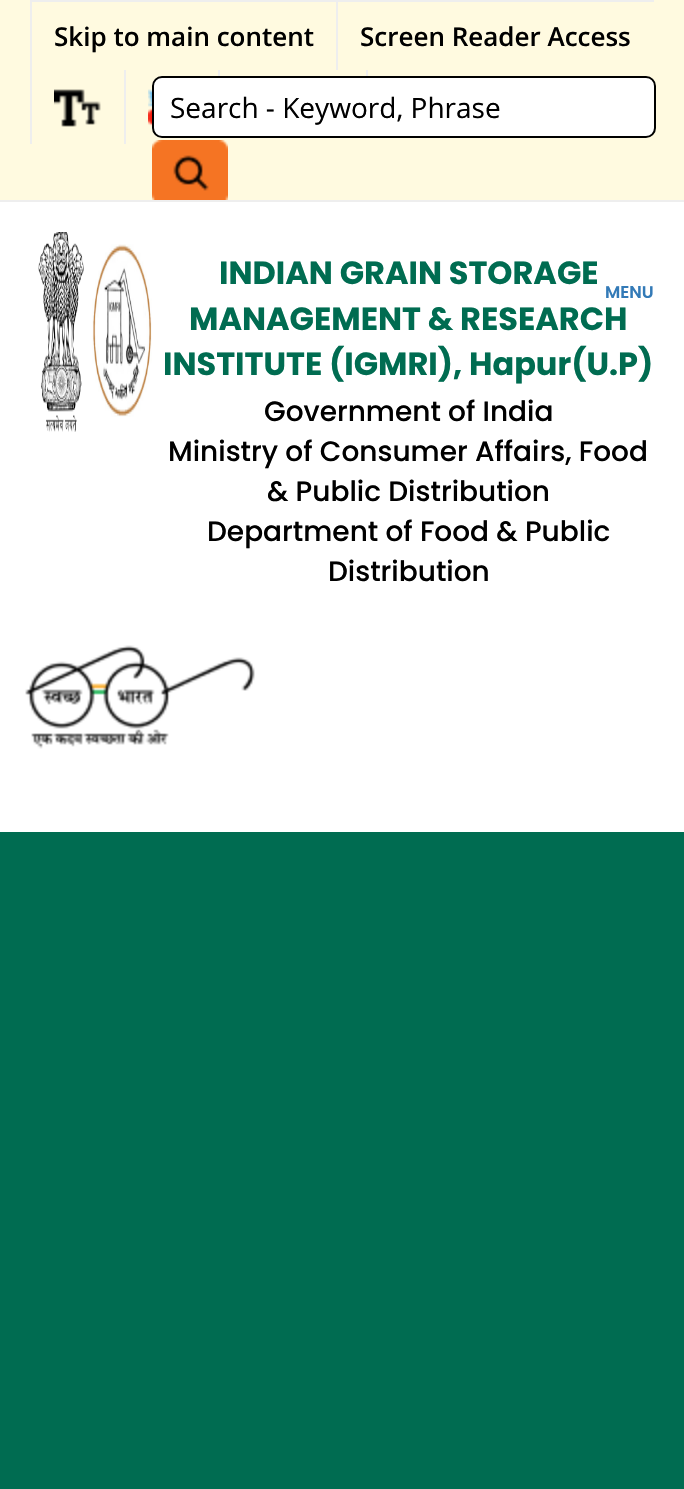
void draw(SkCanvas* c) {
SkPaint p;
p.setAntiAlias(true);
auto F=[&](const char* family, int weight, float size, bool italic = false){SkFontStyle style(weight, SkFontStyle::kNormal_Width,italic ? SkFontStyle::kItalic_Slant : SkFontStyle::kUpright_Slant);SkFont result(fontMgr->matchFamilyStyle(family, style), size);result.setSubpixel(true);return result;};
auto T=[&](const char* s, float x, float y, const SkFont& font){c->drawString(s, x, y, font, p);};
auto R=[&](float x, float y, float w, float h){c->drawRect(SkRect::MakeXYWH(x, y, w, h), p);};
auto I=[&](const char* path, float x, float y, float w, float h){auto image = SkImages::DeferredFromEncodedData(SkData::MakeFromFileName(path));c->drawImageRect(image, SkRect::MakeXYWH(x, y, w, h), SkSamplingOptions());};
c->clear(0xffffffff);
p.setColor(0xfffffae0);
R(0,0,684,200);
p.setColor(0xffeeeeee);
R(0,200,684,2);
R(30,0,624,2);
R(30,2,2,142);
auto f1 = F("Open Sans",600,26);
p.setColor(0xff000000);
T("Skip to main content",54,46,f1);
p.setColor(0xffeeeeee);
R(336,2,2,68);
p.setColor(0xff000000);
T("Screen Reader Access",360,46,f1);
p.setColor(0xffeeeeee);
R(124,70,2,74);
I("1.png",148,89,4,38);
R(218,70,2,6);
R(366,70,2,6);
I("2.png",54,89,47,38);
p.setColor(0xffffffff);
c->drawRoundRect(SkRect::MakeXYWH(153,77,502,60),9,9,p);
p.setStroke(true);
p.setStrokeWidth(2);
p.setColor(0xff000000);
c->drawRoundRect(SkRect::MakeXYWH(153,77,502,60),9,9,p);
auto f2 = F("Open Sans",400,28);
p.setStroke(false);
T("Search - Keyword, Phrase",170,118,f2);
I("3.png",152,140,76,60);
I("4.png",38,232,46,200);
I("5.png",92,244,60,173);
auto f3 = F("Poppins",700,32);
p.setColor(0xff006c51);
T("INDIAN GRAIN STORAGE",219,284,f3);
T("MANAGEMENT & RESEARCH",189,330,f3);
T("INSTITUTE (IGMRI), Hapur(U.P)",163,375,f3);
auto f4 = F("Poppins",500,28);
p.setColor(0xff000000);
T("Government of India",264,421,f4);
T("Ministry of Consumer Affairs, Food",168,461,f4);
T("& Public Distribution",267,501,f4);
T("Department of Food & Public",207,541,f4);
T("Distribution",328,581,f4);
auto f5 = F("Poppins",600,17);
p.setColor(0xff337ab7);
T("MENU",605,298,f5);
I("6.png",25,645,230,104);
p.setColor(0xff006c51);
R(0,832,684,657);
}
